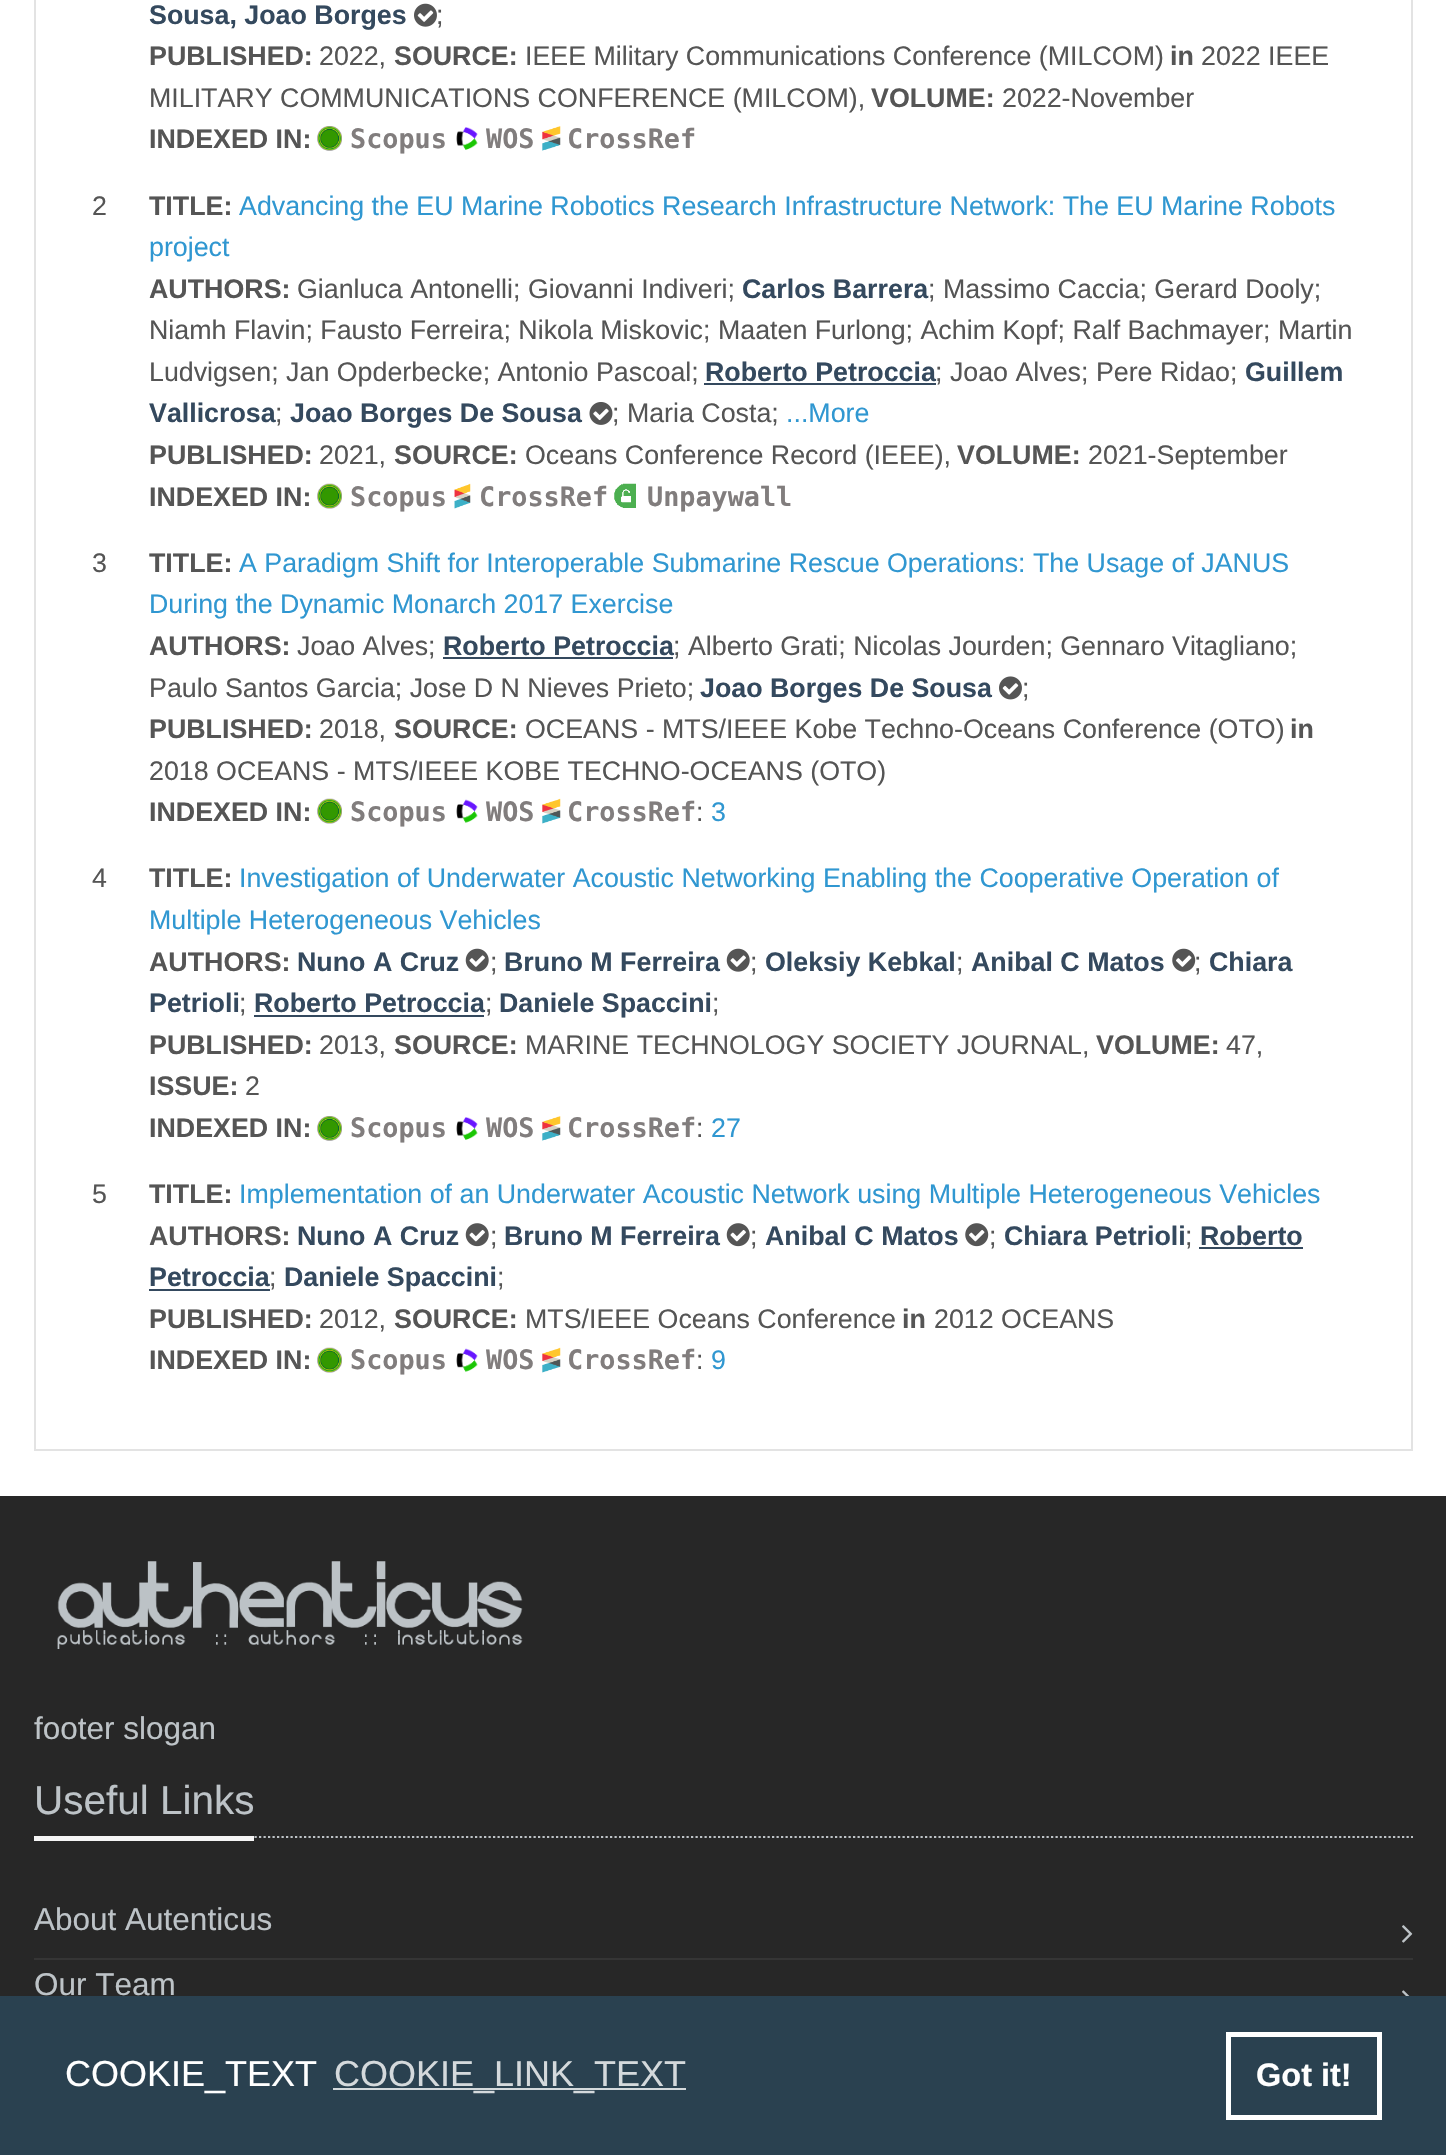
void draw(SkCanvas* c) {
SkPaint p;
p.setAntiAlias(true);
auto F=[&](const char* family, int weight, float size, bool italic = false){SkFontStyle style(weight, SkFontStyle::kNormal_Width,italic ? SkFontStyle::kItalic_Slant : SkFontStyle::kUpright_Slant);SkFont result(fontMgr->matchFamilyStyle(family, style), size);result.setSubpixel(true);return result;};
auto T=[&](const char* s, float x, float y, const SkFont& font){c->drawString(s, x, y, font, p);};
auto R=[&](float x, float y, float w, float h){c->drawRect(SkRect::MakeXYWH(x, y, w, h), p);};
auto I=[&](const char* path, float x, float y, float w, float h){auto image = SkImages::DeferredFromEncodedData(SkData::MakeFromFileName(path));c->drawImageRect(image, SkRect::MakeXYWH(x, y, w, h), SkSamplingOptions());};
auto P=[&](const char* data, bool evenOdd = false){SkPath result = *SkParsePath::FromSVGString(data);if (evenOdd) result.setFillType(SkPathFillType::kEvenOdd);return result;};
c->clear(0xffffffff);
p.setStroke(true);
p.setStrokeWidth(2);
p.setColor(0xffe3e3e3);
c->drawRect(SkRect::MakeXYWH(35,-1,1377,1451),p);
auto f1 = F("Liberation Sans",700,26.8);
p.setStroke(false);
p.setColor(0xff34495e);
T("Sousa, Joao Borges",149,24,f1);
I("1.png",414,3,23,24);
auto f2 = F("Liberation Sans",400,26.8);
p.setColor(0xff555555);
T(";",436,24,f2);
T("PUBLISHED:",149,65,f1);
T("2022,",319,65,f2);
T("SOURCE:",394,65,f1);
T("IEEE Military Communications Conference (MILCOM)",525,65,f2);
T("in",1170,65,f1);
T("2022 IEEE",1201,65,f2);
T("MILITARY COMMUNICATIONS CONFERENCE (MILCOM),",149,107,f2);
T("VOLUME:",871,107,f1);
T("2022-November",1002,107,f2);
T("INDEXED IN:",149,148,f1);
I("2.png",317,126,25,25);
auto f3 = F("DejaVu Sans Mono",700,26.8);
p.setColor(0xff817d7d);
T("Scopus",350,148,f3);
I("3.png",456,127,22,23);
T("WOS",486,148,f3);
I("4.png",542,126,19,25);
T("CrossRef",567,148,f3);
p.setColor(0xff555555);
T("2",92,215,f2);
T("TITLE:",149,215,f1);
p.setColor(0xff3097d1);
T("Advancing the EU Marine Robotics Research Infrastructure Network: The EU Marine Robots",239,215,f2);
T("project",149,256,f2);
p.setColor(0xff555555);
T("AUTHORS:",149,298,f1);
T("Gianluca Antonelli; Giovanni Indiveri;",297,298,f2);
p.setColor(0xff34495e);
T("Carlos Barrera",742,298,f1);
p.setColor(0xff555555);
T("; Massimo Caccia; Gerard Dooly;",928,298,f2);
T("Niamh Flavin; Fausto Ferreira; Nikola Miskovic; Maaten Furlong; Achim Kopf; Ralf Bachmayer; Martin",149,339,f2);
T("Ludvigsen; Jan Opderbecke; Antonio Pascoal;",149,381,f2);
p.setColor(0xff34495e);
T("Roberto Petroccia",705,381,f1);
R(704,383,232,2);
p.setColor(0xff555555);
T("; Joao Alves; Pere Ridao;",935,381,f2);
p.setColor(0xff34495e);
T("Guillem",1245,381,f1);
T("Vallicrosa",149,422,f1);
p.setColor(0xff555555);
T(";",275,422,f2);
p.setColor(0xff34495e);
T("Joao Borges De Sousa",290,422,f1);
I("5.png",589,402,24,23);
p.setColor(0xff555555);
T("; Maria Costa;",612,422,f2);
p.setColor(0xff3097d1);
T("...More",786,422,f2);
p.setColor(0xff555555);
T("PUBLISHED:",149,464,f1);
T("2021,",319,464,f2);
T("SOURCE:",394,464,f1);
T("Oceans Conference Record (IEEE),",525,464,f2);
T("VOLUME:",957,464,f1);
T("2021-September",1088,464,f2);
T("INDEXED IN:",149,506,f1);
I("6.png",317,483,25,26);
p.setColor(0xff817d7d);
T("Scopus",350,506,f3);
I("7.png",454,483,17,26);
T("CrossRef",479,506,f3);
I("8.png",614,483,22,25);
T("Unpaywall",647,506,f3);
p.setColor(0xff555555);
T("3",92,572,f2);
T("TITLE:",149,572,f1);
p.setColor(0xff3097d1);
T("A Paradigm Shift for Interoperable Submarine Rescue Operations: The Usage of JANUS",239,572,f2);
T("During the Dynamic Monarch 2017 Exercise",149,613,f2);
p.setColor(0xff555555);
T("AUTHORS:",149,655,f1);
T("Joao Alves;",297,655,f2);
p.setColor(0xff34495e);
T("Roberto Petroccia",443,655,f1);
R(443,657,230,2);
p.setColor(0xff555555);
T("; Alberto Grati; Nicolas Jourden; Gennaro Vitagliano;",673,655,f2);
T("Paulo Santos Garcia; Jose D N Nieves Prieto;",149,697,f2);
p.setColor(0xff34495e);
T("Joao Borges De Sousa",700,697,f1);
I("9.png",999,676,23,24);
p.setColor(0xff555555);
T(";",1022,697,f2);
T("PUBLISHED:",149,738,f1);
T("2018,",319,738,f2);
T("SOURCE:",394,738,f1);
T("OCEANS - MTS/IEEE Kobe Techno-Oceans Conference (OTO)",525,738,f2);
T("in",1290,738,f1);
T("2018 OCEANS - MTS/IEEE KOBE TECHNO-OCEANS (OTO)",149,780,f2);
T("INDEXED IN:",149,821,f1);
I("6.png",317,798,25,26);
p.setColor(0xff817d7d);
T("Scopus",350,821,f3);
I("10.png",456,799,22,24);
T("WOS",486,821,f3);
I("11.png",542,798,19,26);
T("CrossRef",567,821,f3);
p.setColor(0xff555555);
T(":",696,821,f2);
p.setColor(0xff3097d1);
T("3",711,821,f2);
p.setColor(0xff555555);
T("4",92,887,f2);
T("TITLE:",149,887,f1);
p.setColor(0xff3097d1);
T("Investigation of Underwater Acoustic Networking Enabling the Cooperative Operation of",239,887,f2);
T("Multiple Heterogeneous Vehicles",149,929,f2);
p.setColor(0xff555555);
T("AUTHORS:",149,971,f1);
p.setColor(0xff34495e);
T("Nuno A Cruz",297,971,f1);
I("12.png",465,948,24,24);
p.setColor(0xff555555);
T(";",490,971,f2);
p.setColor(0xff34495e);
T("Bruno M Ferreira",504,971,f1);
I("12.png",726,948,24,24);
p.setColor(0xff555555);
T(";",750,971,f2);
p.setColor(0xff34495e);
T("Oleksiy Kebkal",765,971,f1);
p.setColor(0xff555555);
T(";",956,971,f2);
p.setColor(0xff34495e);
T("Anibal C Matos",971,971,f1);
I("13.png",1172,948,24,24);
p.setColor(0xff555555);
T(";",1194,971,f2);
p.setColor(0xff34495e);
T("Chiara",1209,971,f1);
T("Petrioli",149,1012,f1);
p.setColor(0xff555555);
T(";",239,1012,f2);
p.setColor(0xff34495e);
T("Roberto Petroccia",254,1012,f1);
R(254,1015,230,2);
p.setColor(0xff555555);
T(";",485,1012,f2);
p.setColor(0xff34495e);
T("Daniele Spaccini",499,1012,f1);
p.setColor(0xff555555);
T(";",712,1012,f2);
T("PUBLISHED:",149,1054,f1);
T("2013,",319,1054,f2);
T("SOURCE:",394,1054,f1);
T("MARINE TECHNOLOGY SOCIETY JOURNAL,",525,1054,f2);
T("VOLUME:",1096,1054,f1);
T("47,",1226,1054,f2);
T("ISSUE:",149,1095,f1);
T("2",245,1095,f2);
T("INDEXED IN:",149,1137,f1);
I("2.png",317,1116,25,25);
p.setColor(0xff817d7d);
T("Scopus",350,1137,f3);
I("3.png",456,1117,22,23);
T("WOS",486,1137,f3);
I("4.png",542,1116,19,25);
T("CrossRef",567,1137,f3);
p.setColor(0xff555555);
T(":",696,1137,f2);
p.setColor(0xff3097d1);
T("27",711,1137,f2);
p.setColor(0xff555555);
T("5",92,1203,f2);
T("TITLE:",149,1203,f1);
p.setColor(0xff3097d1);
T("Implementation of an Underwater Acoustic Network using Multiple Heterogeneous Vehicles",239,1203,f2);
p.setColor(0xff555555);
T("AUTHORS:",149,1245,f1);
p.setColor(0xff34495e);
T("Nuno A Cruz",297,1245,f1);
I("14.png",465,1223,24,24);
p.setColor(0xff555555);
T(";",490,1245,f2);
p.setColor(0xff34495e);
T("Bruno M Ferreira",504,1245,f1);
I("14.png",726,1223,24,24);
p.setColor(0xff555555);
T(";",750,1245,f2);
p.setColor(0xff34495e);
T("Anibal C Matos",765,1245,f1);
I("15.png",965,1223,24,24);
p.setColor(0xff555555);
T(";",989,1245,f2);
p.setColor(0xff34495e);
T("Chiara Petrioli",1004,1245,f1);
p.setColor(0xff555555);
T(";",1185,1245,f2);
p.setColor(0xff34495e);
T("Roberto",1200,1245,f1);
R(1199,1247,104,2);
T("Petroccia",149,1286,f1);
R(149,1289,121,2);
p.setColor(0xff555555);
T(";",269,1286,f2);
p.setColor(0xff34495e);
T("Daniele Spaccini",284,1286,f1);
p.setColor(0xff555555);
T(";",497,1286,f2);
T("PUBLISHED:",149,1328,f1);
T("2012,",319,1328,f2);
T("SOURCE:",394,1328,f1);
T("MTS/IEEE Oceans Conference",525,1328,f2);
T("in",902,1328,f1);
T("2012 OCEANS",934,1328,f2);
T("INDEXED IN:",149,1369,f1);
I("6.png",317,1347,25,26);
p.setColor(0xff817d7d);
T("Scopus",350,1369,f3);
I("10.png",456,1348,22,24);
T("WOS",486,1369,f3);
I("11.png",542,1347,19,26);
T("CrossRef",567,1369,f3);
p.setColor(0xff555555);
T(":",696,1369,f2);
p.setColor(0xff3097d1);
T("9",711,1369,f2);
p.setColor(0xff272727);
R(0,1496,1446,500);
I("16.png",57,1561,466,88);
auto f4 = F("Liberation Sans",400,31.5);
p.setColor(0xffbdc3c7);
T("footer slogan",34,1739,f4);
p.setStroke(true);
p.setStrokeWidth(2.2);
p.setPathEffect(SkDashPathEffect::Make({{2.25f,2.25f}}, 0));
c->drawPath(P("M34 1837h1379"),p);
p.setPathEffect(nullptr);
p.setStroke(false);
p.setColor(0xfff5f5f5);
R(34,1836,220,5);
auto f5 = F("Liberation Sans",400,40.5);
p.setColor(0xffbdc3c7);
T("Useful Links",34,1814,f5);
T("About Autenticus",34,1930,f4);
I("17.png",1402,1925,11,18);
p.setColor(0xff353535);
R(34,1958,1379,2);
p.setColor(0xffbdc3c7);
T("Our Team",34,1995,f4);
I("18.png",1402,1990,8,6);
p.setColor(0xff2a4150);
R(0,1996,1446,159);
auto f6 = F("Liberation Sans",400,36);
p.setColor(0xffffffff);
T("COOKIE_TEXT",65,2086,f6);
p.setColor(0xffd4d9dc);
R(333,2088,353,2);
T("COOKIE_LINK_TEXT",334,2086,f6);
p.setStroke(true);
p.setStrokeWidth(5);
p.setColor(0xffffffff);
c->drawRect(SkRect::MakeXYWH(1228.5,2034.5,151,83),p);
auto f7 = F("Liberation Sans",700,32.5);
p.setStroke(false);
T("Got it!",1256,2086,f7);
}
